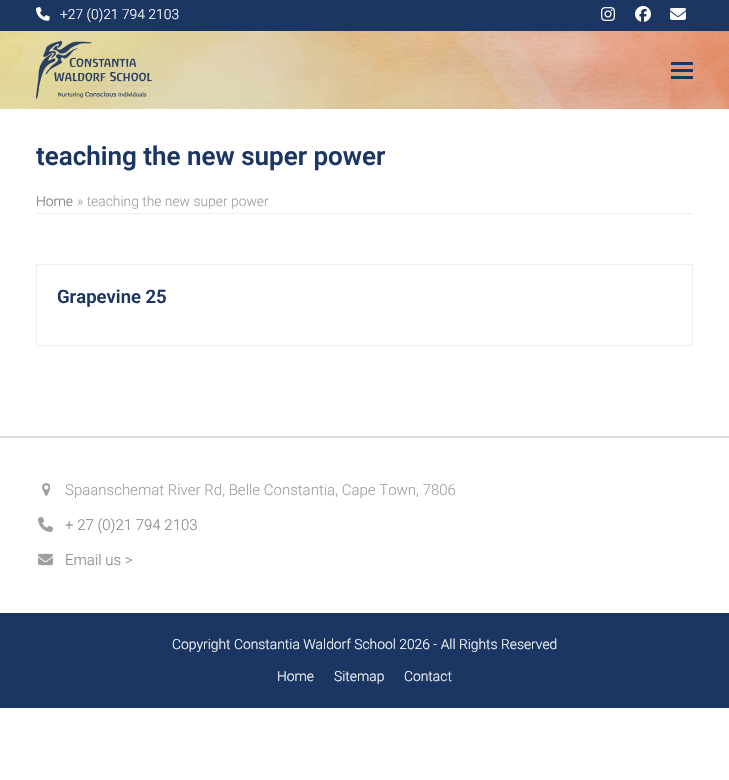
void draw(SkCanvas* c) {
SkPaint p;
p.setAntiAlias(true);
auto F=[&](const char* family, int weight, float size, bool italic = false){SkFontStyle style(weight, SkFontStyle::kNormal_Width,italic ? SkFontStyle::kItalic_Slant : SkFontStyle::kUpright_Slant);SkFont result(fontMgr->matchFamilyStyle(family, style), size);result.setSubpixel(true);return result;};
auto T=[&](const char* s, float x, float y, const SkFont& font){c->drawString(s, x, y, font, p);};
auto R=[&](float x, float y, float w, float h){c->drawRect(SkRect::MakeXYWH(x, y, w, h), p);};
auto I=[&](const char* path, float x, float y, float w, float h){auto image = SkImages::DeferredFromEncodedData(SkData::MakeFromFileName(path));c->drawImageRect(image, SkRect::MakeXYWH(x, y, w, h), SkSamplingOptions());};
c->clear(0xffffffff);
p.setColor(0xff1b3663);
R(0,0,729,31);
I("1.png",36,7,14,14);
auto f1 = F("Roboto",300,13.85);
p.setColor(0xffffffff);
T("+27 (0)21 794 2103",60,19,f1);
I("2.png",601,7,14,14);
I("3.png",635,6,16,16);
I("4.png",670,8,16,12);
I("5.png",0,31,729,78);
I("6.png",36,41,119,58);
p.setColor(0xff1b3663);
R(671,69,22,3);
R(671,62,22,3);
R(671,76,22,3);
p.setColor(0xffeeeeee);
R(36,213,657,1);
auto f2 = F("Roboto",600,26);
p.setColor(0xff1b3663);
T("teaching the new super power",36,165,f2);
p.setColor(0xff757575);
T("Home",36,206,f1);
p.setColor(0xff9e9e9e);
T("» teaching the new super power",77,206,f1);
p.setStroke(true);
p.setStrokeWidth(1);
p.setColor(0xffeeeeee);
c->drawRect(SkRect::MakeXYWH(36.5,264.5,656,81),p);
auto f3 = F("Roboto",600,18.5);
p.setStroke(false);
p.setColor(0xff1b3663);
T("Grapevine 25",57,303,f3);
p.setColor(0xffdddddd);
R(0,436,729,2);
I("7.png",42,483,8,13);
auto f4 = F("Roboto",300,15);
p.setColor(0xff9e9e9e);
T("Spaanschemat River Rd, Belle Constantia, Cape Town, 7806",65,495,f4);
I("8.png",38,517,15,15);
p.setColor(0xff878787);
T("+ 27 (0)21 794 2103",65,530,f4);
I("9.png",38,553,15,13);
T("Email us >",65,565,f4);
p.setColor(0xff1b3663);
R(0,613,729,95);
p.setColor(0xffffffff);
T("Copyright Constantia Waldorf School 2026 - All Rights Reserved",172,649,f1);
T("Home",277,681,f1);
T("Sitemap",334,681,f1);
T("Contact",404,681,f1);
}
